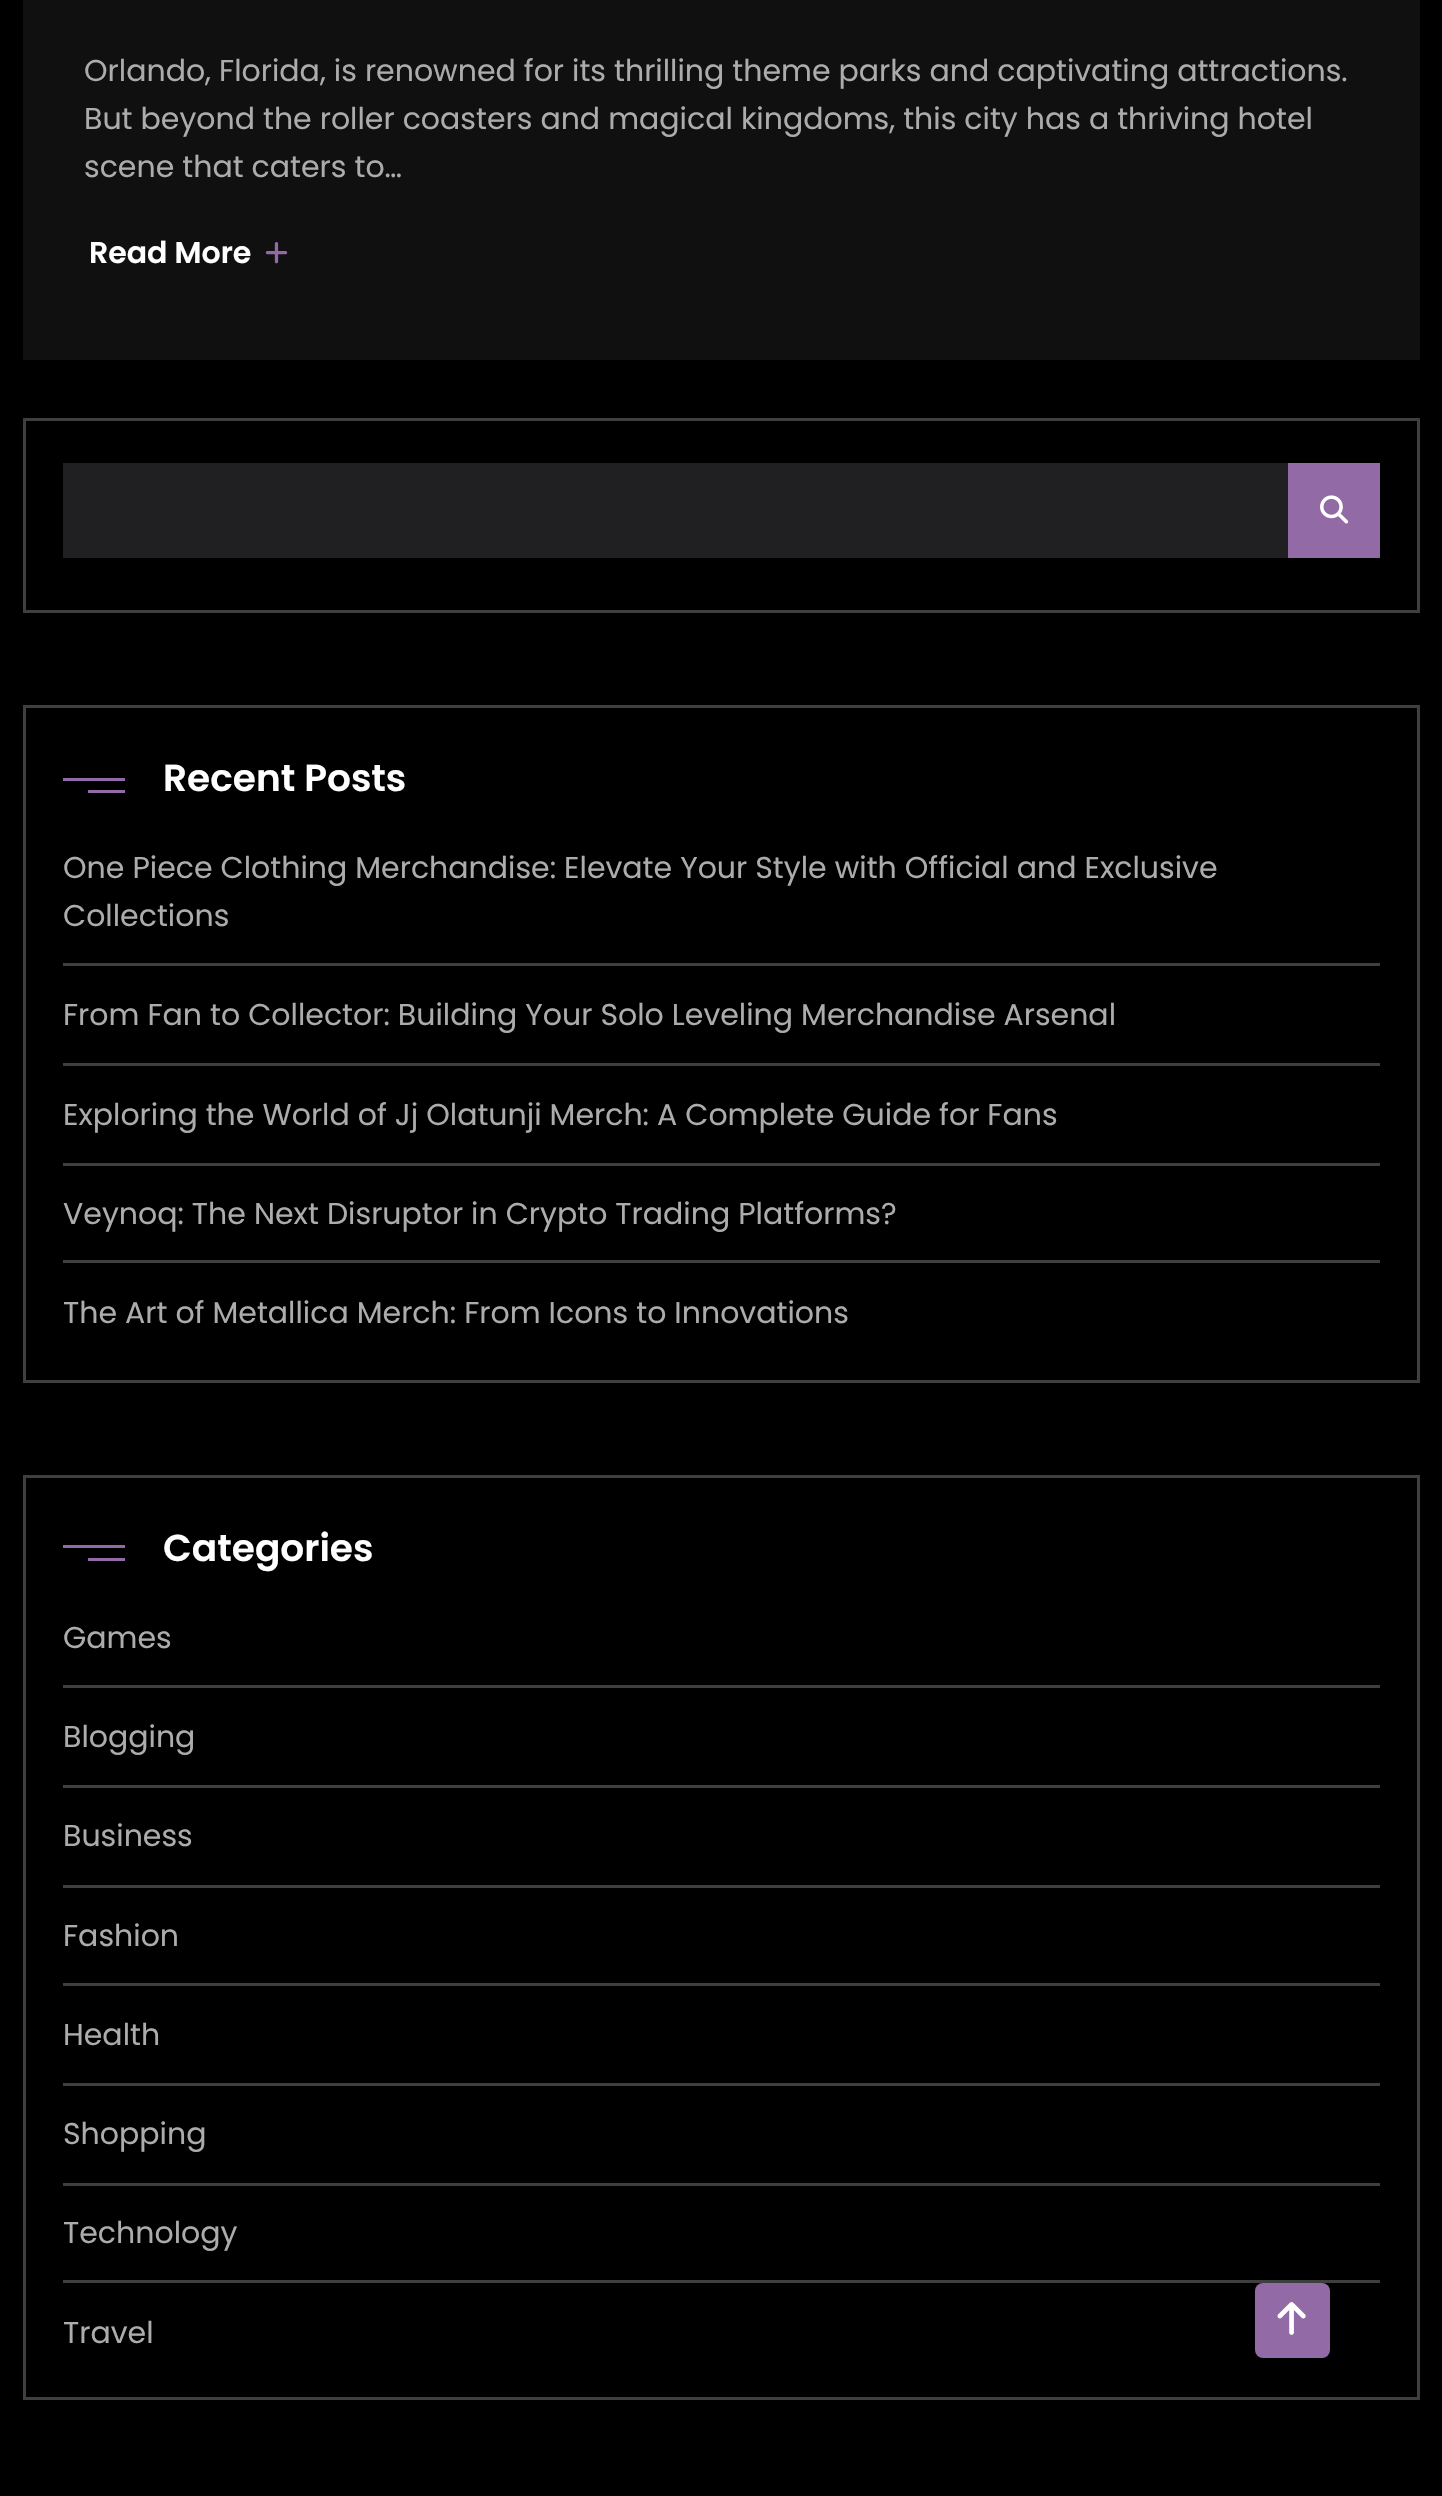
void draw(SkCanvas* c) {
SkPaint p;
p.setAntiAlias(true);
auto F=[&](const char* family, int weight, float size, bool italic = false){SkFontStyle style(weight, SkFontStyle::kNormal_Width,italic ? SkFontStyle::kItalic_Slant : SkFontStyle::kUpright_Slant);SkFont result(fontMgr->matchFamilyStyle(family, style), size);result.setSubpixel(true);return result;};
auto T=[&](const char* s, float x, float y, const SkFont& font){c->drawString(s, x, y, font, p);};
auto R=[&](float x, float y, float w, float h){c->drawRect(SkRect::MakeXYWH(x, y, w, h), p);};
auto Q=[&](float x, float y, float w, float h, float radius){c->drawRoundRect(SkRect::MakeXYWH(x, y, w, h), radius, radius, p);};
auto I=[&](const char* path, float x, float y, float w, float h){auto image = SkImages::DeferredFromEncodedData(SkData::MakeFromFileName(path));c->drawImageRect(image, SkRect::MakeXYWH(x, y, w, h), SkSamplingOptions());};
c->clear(0xff000000);
p.setColor(0xff101010);
R(23,0,1397,360);
auto f1 = F("Poppins",400,30);
p.setColor(0xffacacac);
T("Orlando, Florida, is renowned for its thrilling theme parks and captivating attractions.",84,81,f1);
T("But beyond the roller coasters and magical kingdoms, this city has a thriving hotel",84,129,f1);
T("scene that caters to…",84,177,f1);
auto f2 = F("Poppins",600,30);
p.setColor(0xffffffff);
T("Read More",89,263,f2);
I("1.png",265,242,23,22);
p.setStroke(true);
p.setStrokeWidth(3);
p.setColor(0xff3f3f3f);
c->drawRect(SkRect::MakeXYWH(24.5,419.5,1394,192),p);
p.setStroke(false);
p.setColor(0xff202022);
R(63,463,1225,95);
p.setColor(0xff926aa6);
R(1288,463,92,95);
I("2.png",1320,495,29,29);
p.setStroke(true);
p.setColor(0xff3f3f3f);
c->drawRect(SkRect::MakeXYWH(24.5,706.5,1394,675),p);
p.setStroke(false);
p.setColor(0xff926aa6);
R(63,778,62,3);
auto f3 = F("Poppins",600,37.5);
p.setColor(0xffffffff);
T("Recent Posts",163,791,f3);
p.setColor(0xff926aa6);
R(88,790,37,3);
p.setColor(0xff3f3f3f);
R(63,963,1317,3);
p.setColor(0xffacacac);
T("One Piece Clothing Merchandise: Elevate Your Style with Official and Exclusive",63,878,f1);
T("Collections",63,926,f1);
p.setColor(0xff3f3f3f);
R(63,1063,1317,3);
p.setColor(0xffacacac);
T("From Fan to Collector: Building Your Solo Leveling Merchandise Arsenal",63,1025,f1);
p.setColor(0xff3f3f3f);
R(63,1163,1317,3);
p.setColor(0xffacacac);
T("Exploring the World of Jj Olatunji Merch: A Complete Guide for Fans",63,1125,f1);
p.setColor(0xff3f3f3f);
R(63,1260,1317,3);
p.setColor(0xffacacac);
T("Veynoq: The Next Disruptor in Crypto Trading Platforms?",63,1224,f1);
T("The Art of Metallica Merch: From Icons to Innovations",63,1323,f1);
p.setStroke(true);
p.setColor(0xff3f3f3f);
c->drawRect(SkRect::MakeXYWH(24.5,1476.5,1394,922),p);
p.setStroke(false);
p.setColor(0xff926aa6);
R(63,1545,62,3);
p.setColor(0xffffffff);
T("Categories",163,1561,f3);
p.setColor(0xff926aa6);
R(88,1558,37,3);
p.setColor(0xff3f3f3f);
R(63,1685,1317,3);
p.setColor(0xffacacac);
T("Games",63,1648,f1);
p.setColor(0xff3f3f3f);
R(63,1785,1317,3);
p.setColor(0xffacacac);
T("Blogging",63,1747,f1);
p.setColor(0xff3f3f3f);
R(63,1885,1317,3);
p.setColor(0xffacacac);
T("Business",63,1846,f1);
p.setColor(0xff3f3f3f);
R(63,1983,1317,3);
p.setColor(0xffacacac);
T("Fashion",63,1946,f1);
p.setColor(0xff3f3f3f);
R(63,2083,1317,3);
p.setColor(0xffacacac);
T("Health",63,2045,f1);
p.setColor(0xff3f3f3f);
R(63,2183,1317,3);
p.setColor(0xffacacac);
T("Shopping",63,2144,f1);
p.setColor(0xff3f3f3f);
R(63,2280,1317,3);
p.setColor(0xffacacac);
T("Technology",63,2243,f1);
T("Travel",63,2343,f1);
p.setColor(0xff926aa6);
Q(1255,2283,75,75,8);
I("3.png",1277,2302,29,33);
}
